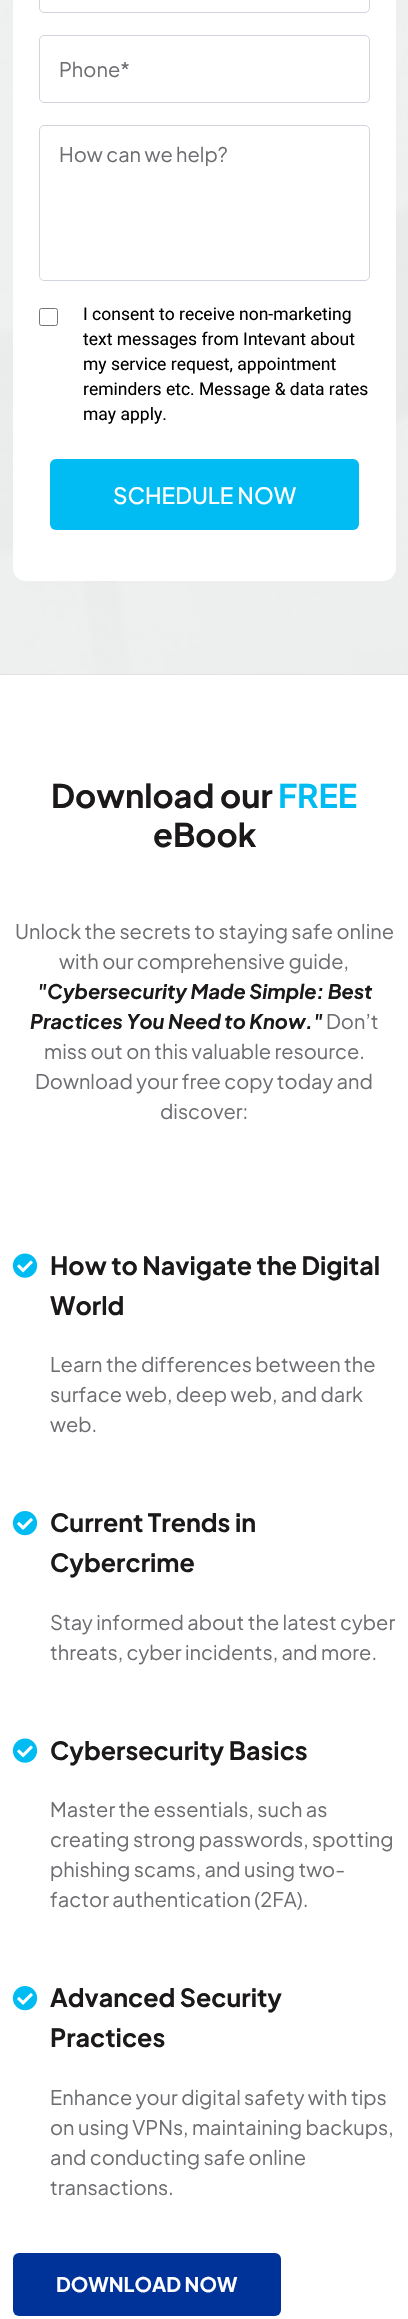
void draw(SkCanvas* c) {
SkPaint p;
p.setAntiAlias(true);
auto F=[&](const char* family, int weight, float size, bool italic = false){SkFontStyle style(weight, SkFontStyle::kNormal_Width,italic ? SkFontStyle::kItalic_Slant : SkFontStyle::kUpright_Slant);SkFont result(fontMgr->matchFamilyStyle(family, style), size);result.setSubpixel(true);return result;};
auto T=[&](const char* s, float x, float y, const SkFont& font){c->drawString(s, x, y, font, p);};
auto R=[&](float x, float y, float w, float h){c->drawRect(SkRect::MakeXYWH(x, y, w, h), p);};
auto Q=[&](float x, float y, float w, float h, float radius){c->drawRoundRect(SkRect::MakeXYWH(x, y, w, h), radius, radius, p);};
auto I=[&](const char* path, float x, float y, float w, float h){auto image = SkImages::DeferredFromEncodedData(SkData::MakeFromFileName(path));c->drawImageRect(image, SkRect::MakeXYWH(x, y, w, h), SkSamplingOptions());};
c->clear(0xffffffff);
p.setColor(0xffd6d8d9);
R(0,0,408,675);
I("1.png",0,0,408,675);
p.setColor(0xffffffff);
Q(13,-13,383,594,13);
p.setStroke(true);
p.setStrokeWidth(1);
p.setColor(0xffd0d5dd);
c->drawRoundRect(SkRect::MakeXYWH(39.5,-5.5,330,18),4.5,4.5,p);
c->drawRoundRect(SkRect::MakeXYWH(39.5,35.5,330,67),4.5,4.5,p);
auto f1 = F("Plus Jakarta Sans",400,20);
p.setStroke(false);
p.setColor(0xff6d6e71);
T("Phone*",59,77,f1);
p.setStroke(true);
p.setColor(0xffd0d5dd);
c->drawRoundRect(SkRect::MakeXYWH(39.5,125.5,330,155),4.5,4.5,p);
p.setStroke(false);
p.setColor(0xff6d6e71);
T("How can we help?",59,162,f1);
p.setStroke(true);
p.setColor(0xff767676);
c->drawRoundRect(SkRect::MakeXYWH(39.5,308.5,18,17),2,2,p);
auto f2 = F("Roboto",400,17.5);
p.setStroke(false);
p.setColor(0xff000000);
T("I consent to receive non-marketing",83,320,f2);
T("text messages from Intevant about",83,345,f2);
T("my service request, appointment",83,370,f2);
T("reminders etc. Message & data rates",83,395,f2);
T("may apply.",83,420,f2);
p.setColor(0xff00bcf2);
Q(50,459,309,71,6);
auto f3 = F("Plus Jakarta Sans",500,22.5);
p.setColor(0xffffffff);
T("SCHEDULE NOW",113,504,f3);
auto f4 = F("Plus Jakarta Sans",700,32.5);
p.setColor(0xff1b1919);
T("Download our",51,808,f4);
p.setColor(0xff00bcf2);
T("FREE",278,808,f4);
p.setColor(0xff1b1919);
T("eBook",153,847,f4);
p.setColor(0xff6d6e71);
T("Unlock the secrets to staying safe online",15,939,f1);
T("with our comprehensive guide,",59,969,f1);
auto f5 = F("Plus Jakarta Sans",700,20,true);
p.setColor(0xff1b1919);
T("\"Cybersecurity Made Simple: Best",37,999,f5);
T("Practices You Need to Know.\"",30,1029,f5);
p.setColor(0xff6d6e71);
T("Don’t",326,1029,f1);
T("miss out on this valuable resource.",44,1059,f1);
T("Download your free copy today and",35,1089,f1);
T("discover:",160,1119,f1);
I("2.png",12,1253,26,25);
auto f6 = F("Plus Jakarta Sans",700,25);
p.setColor(0xff1b1919);
T("How to Navigate the Digital",50,1275,f6);
T("World",50,1315,f6);
p.setColor(0xff6d6e71);
T("Learn the differences between the",50,1372,f1);
T("surface web, deep web, and dark",50,1402,f1);
T("web.",50,1432,f1);
I("3.png",12,1511,26,25);
p.setColor(0xff1b1919);
T("Current Trends in",50,1532,f6);
T("Cybercrime",50,1572,f6);
p.setColor(0xff6d6e71);
T("Stay informed about the latest cyber",50,1630,f1);
T("threats, cyber incidents, and more.",50,1660,f1);
I("2.png",12,1738,26,25);
p.setColor(0xff1b1919);
T("Cybersecurity Basics",50,1760,f6);
p.setColor(0xff6d6e71);
T("Master the essentials, such as",50,1817,f1);
T("creating strong passwords, spotting",50,1847,f1);
T("phishing scams, and using two-",50,1877,f1);
T("factor authentication (2FA).",50,1907,f1);
I("3.png",12,1986,26,25);
p.setColor(0xff1b1919);
T("Advanced Security",50,2007,f6);
T("Practices",50,2047,f6);
p.setColor(0xff6d6e71);
T("Enhance your digital safety with tips",50,2105,f1);
T("on using VPNs, maintaining backups,",50,2135,f1);
T("and conducting safe online",50,2165,f1);
T("transactions.",50,2195,f1);
p.setColor(0xff003399);
Q(13,2253,268,63,6);
auto f7 = F("Plus Jakarta Sans",700,20);
p.setColor(0xffffffff);
T("DOWNLOAD NOW",56,2292,f7);
}
